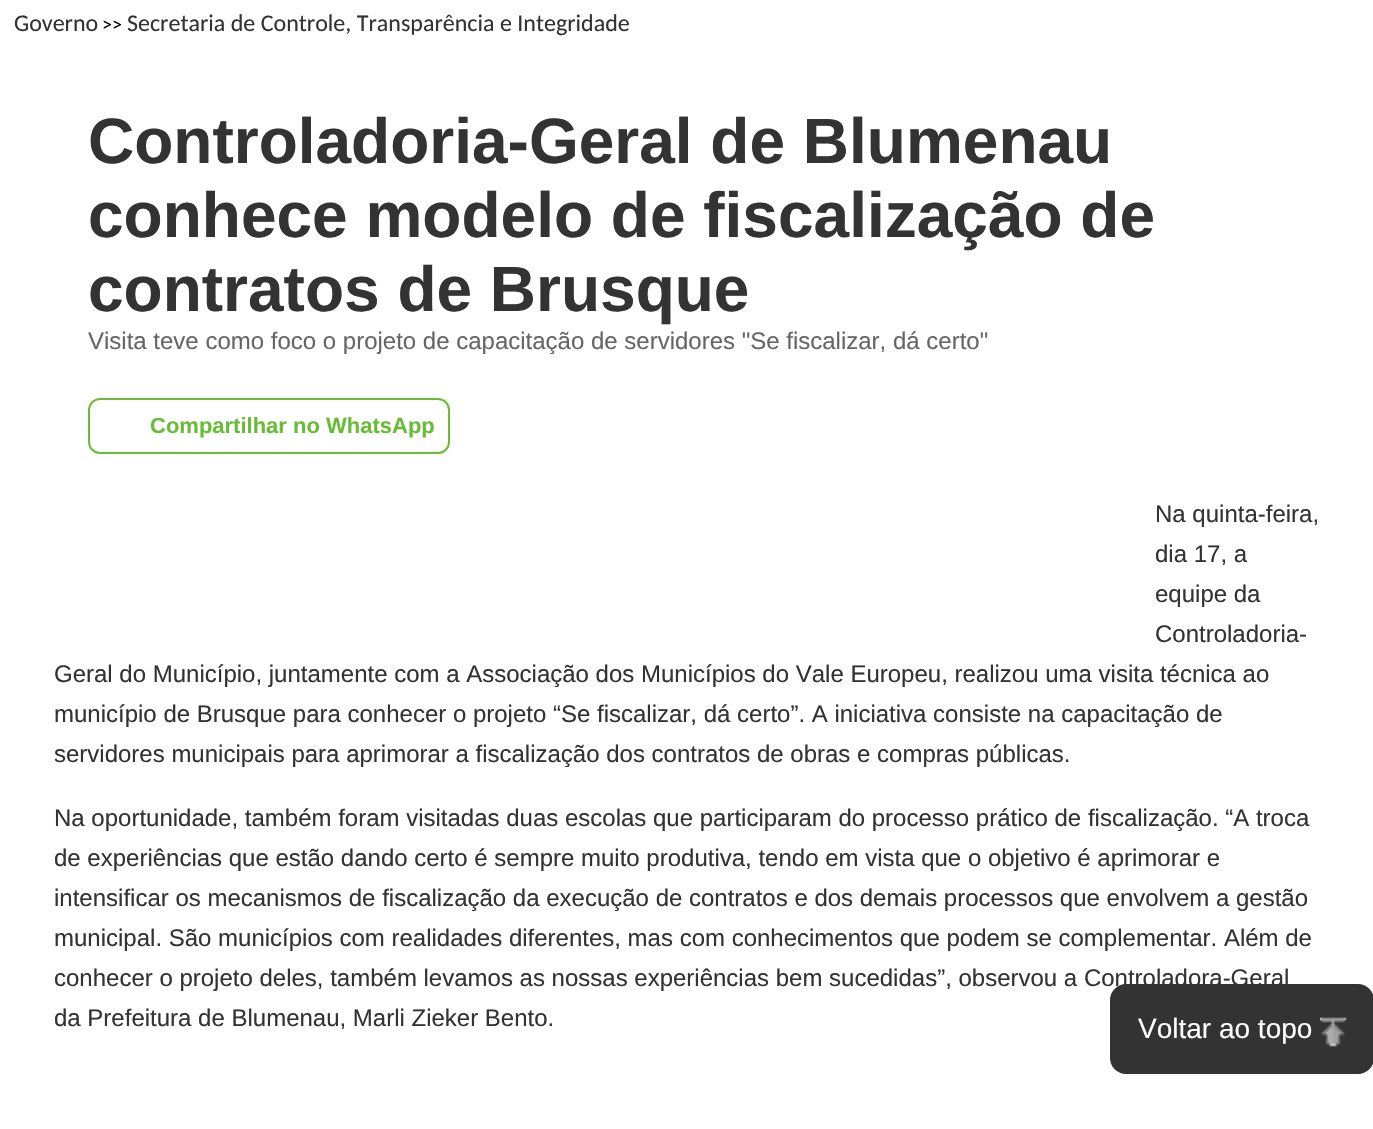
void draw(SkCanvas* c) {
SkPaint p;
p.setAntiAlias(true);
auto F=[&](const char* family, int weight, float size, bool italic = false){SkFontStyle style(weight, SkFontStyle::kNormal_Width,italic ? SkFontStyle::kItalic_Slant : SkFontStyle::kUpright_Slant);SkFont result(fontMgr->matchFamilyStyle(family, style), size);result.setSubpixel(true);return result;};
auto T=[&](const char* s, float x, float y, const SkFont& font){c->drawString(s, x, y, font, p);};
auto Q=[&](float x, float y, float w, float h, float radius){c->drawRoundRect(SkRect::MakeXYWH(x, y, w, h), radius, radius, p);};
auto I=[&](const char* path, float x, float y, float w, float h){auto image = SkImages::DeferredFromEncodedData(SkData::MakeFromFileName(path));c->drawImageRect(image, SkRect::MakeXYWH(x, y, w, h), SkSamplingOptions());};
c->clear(0xffffffff);
auto f1 = F("Carlito",400,24);
p.setColor(0xff333333);
T("Governo",14,31,f1);
auto f2 = F("Carlito",400,20);
p.setColor(0xff000000);
T(">>",102,31,f2);
p.setColor(0xff333333);
T("Secretaria de Controle, Transparência e Integridade",127,31,f1);
auto f3 = F("Liberation Sans",700,64);
T("Controladoria-Geral de Blumenau",88,163,f3);
T("conhece modelo de fiscalização de",88,237,f3);
T("contratos de Brusque",88,311,f3);
auto f4 = F("Liberation Sans",400,24);
p.setColor(0xff666666);
T("Visita teve como foco o projeto de capacitação de servidores \"Se fiscalizar, dá certo\"",88,349,f4);
p.setStroke(true);
p.setStrokeWidth(2);
p.setColor(0xff69bc36);
c->drawRoundRect(SkRect::MakeXYWH(89,399,360,54),11,11,p);
auto f5 = F("Liberation Sans",700,22);
p.setStroke(false);
T("Compartilhar no WhatsApp",150,433,f5);
p.setColor(0xff333333);
T("Na quinta-feira,",1155,522,f4);
T("dia 17, a",1155,562,f4);
T("equipe da",1155,602,f4);
T("Controladoria-",1155,642,f4);
T("Geral do Município, juntamente com a Associação dos Municípios do Vale Europeu, realizou uma visita técnica ao",54,682,f4);
T("município de Brusque para conhecer o projeto “Se fiscalizar, dá certo”. A iniciativa consiste na capacitação de",54,722,f4);
T("servidores municipais para aprimorar a fiscalização dos contratos de obras e compras públicas.",54,762,f4);
T("Na oportunidade, também foram visitadas duas escolas que participaram do processo prático de fiscalização. “A troca",54,826,f4);
T("de experiências que estão dando certo é sempre muito produtiva, tendo em vista que o objetivo é aprimorar e",54,866,f4);
T("intensificar os mecanismos de fiscalização da execução de contratos e dos demais processos que envolvem a gestão",54,906,f4);
T("municipal. São municípios com realidades diferentes, mas com conhecimentos que podem se complementar. Além de",54,946,f4);
T("conhecer o projeto deles, também levamos as nossas experiências bem sucedidas”, observou a Controladora-Geral",54,986,f4);
T("da Prefeitura de Blumenau, Marli Zieker Bento.",54,1026,f4);
Q(1110,984,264,90,16);
auto f6 = F("Liberation Sans",400,28);
p.setColor(0xffffffff);
T("Voltar ao topo",1138,1038,f6);
I("1.png",1320,1017,27,30);
}
